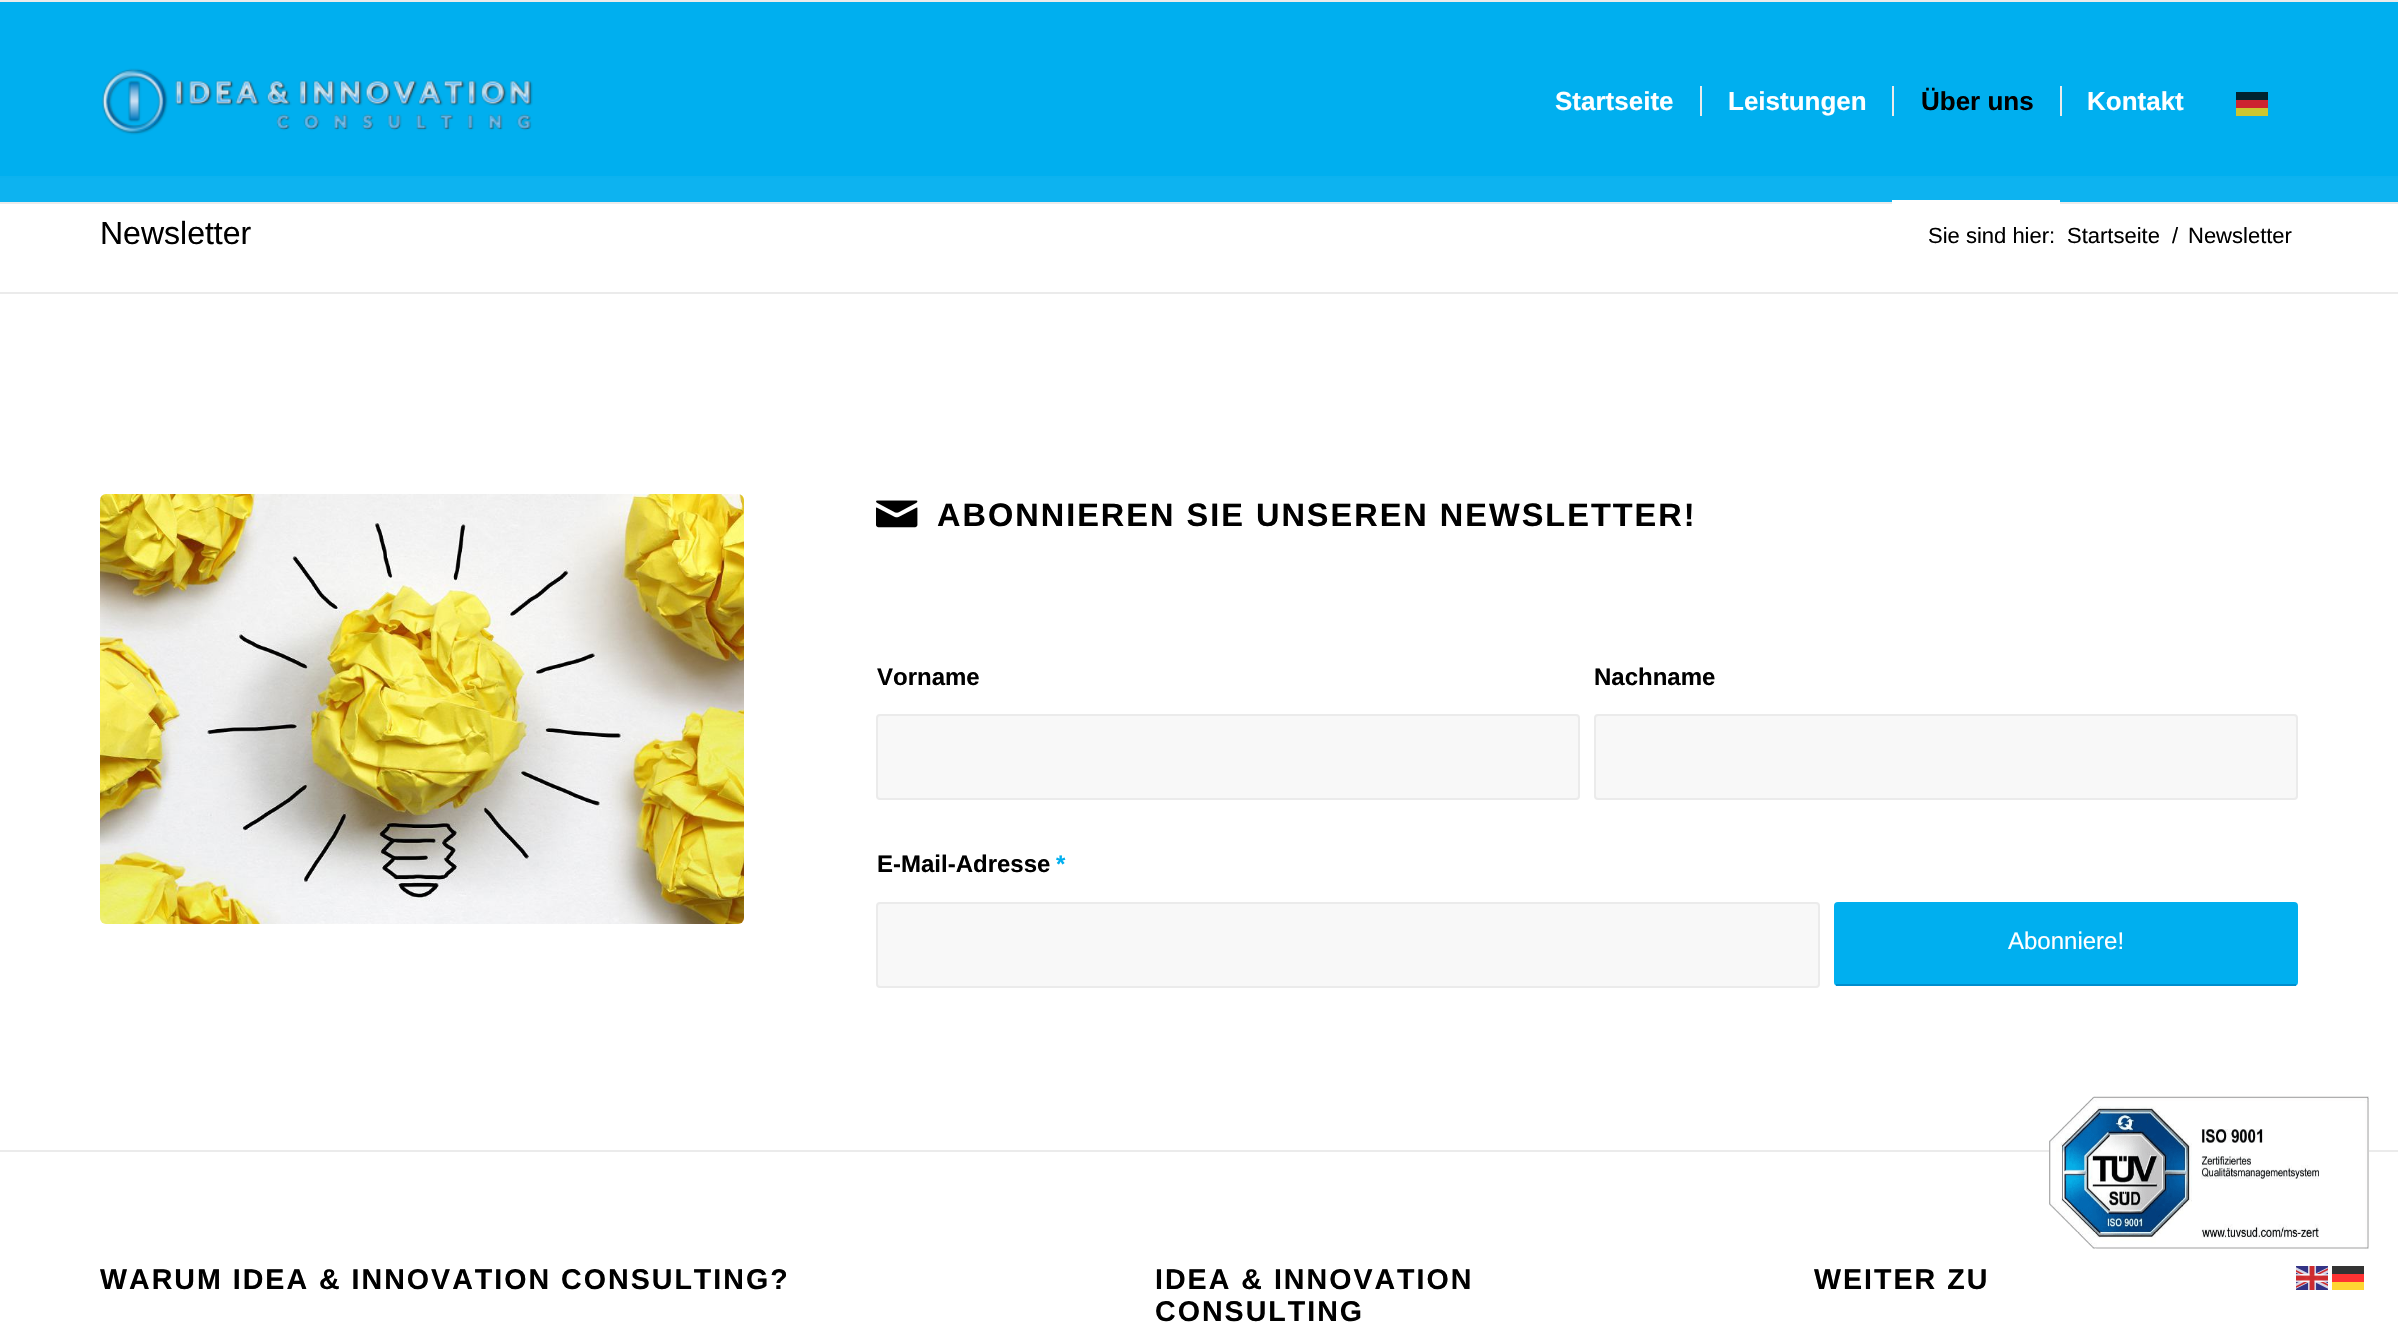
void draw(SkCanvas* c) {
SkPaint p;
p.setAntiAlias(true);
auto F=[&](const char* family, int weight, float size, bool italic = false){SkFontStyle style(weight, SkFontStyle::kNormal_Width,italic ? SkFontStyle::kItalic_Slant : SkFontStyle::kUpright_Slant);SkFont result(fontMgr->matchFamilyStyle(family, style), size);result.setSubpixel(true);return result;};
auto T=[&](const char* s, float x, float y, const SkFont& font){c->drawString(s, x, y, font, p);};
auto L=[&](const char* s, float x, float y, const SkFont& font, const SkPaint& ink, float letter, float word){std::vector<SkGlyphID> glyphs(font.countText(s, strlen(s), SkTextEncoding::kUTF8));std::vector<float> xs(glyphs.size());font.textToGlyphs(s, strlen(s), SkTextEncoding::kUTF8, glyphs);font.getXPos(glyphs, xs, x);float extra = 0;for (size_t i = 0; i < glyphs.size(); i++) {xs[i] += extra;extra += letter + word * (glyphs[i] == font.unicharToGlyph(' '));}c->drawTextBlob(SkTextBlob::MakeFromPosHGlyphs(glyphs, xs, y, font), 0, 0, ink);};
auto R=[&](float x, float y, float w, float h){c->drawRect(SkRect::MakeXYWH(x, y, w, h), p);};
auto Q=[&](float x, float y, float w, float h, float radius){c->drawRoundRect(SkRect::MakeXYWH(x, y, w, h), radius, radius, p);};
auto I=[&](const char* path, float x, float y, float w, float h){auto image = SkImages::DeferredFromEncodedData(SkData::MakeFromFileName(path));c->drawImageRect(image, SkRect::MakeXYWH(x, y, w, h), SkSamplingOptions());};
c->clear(0xff00afef);
p.setColor(0xffebebeb);
R(0,0,2398,2);
R(0,202,2398,2);
I("1.png",101,68,432,67);
auto f1 = F("Liberation Sans",700,26);
p.setColor(0xffffffff);
T("Startseite",1555,110,f1);
T("Leistungen",1728,110,f1);
p.setColor(0xffebebeb);
R(1700,86,2,30);
p.setColor(0xff000000);
T("Über uns",1921,110,f1);
p.setColor(0xffebebeb);
R(1892,86,2,30);
p.setColor(0xff0db3f0);
R(0,178,2398,24);
p.setColor(0xffffffff);
R(1892,200,168,4);
T("Kontakt",2087,110,f1);
p.setColor(0xffebebeb);
R(2060,86,2,30);
p.setColor(0xff002330);
R(2236,92,32,8);
p.setColor(0xffcc2330);
R(2236,100,32,8);
p.setColor(0xffccc630);
R(2236,108,32,8);
p.setColor(0xffffffff);
R(0,204,2398,88);
p.setColor(0xff0cb2ef);
R(0,176,2398,2);
auto f2 = F("Liberation Sans",400,32);
p.setColor(0xff000000);
T("Newsletter",100,244,f2);
auto f3 = F("Liberation Sans",400,22);
T("Sie sind hier:",1928,243,f3);
T("Startseite",2067,243,f3);
T("/",2172,243,f3);
T("Newsletter",2188,243,f3);
p.setColor(0xffffffff);
R(0,294,2398,856);
p.setColor(0xffebebeb);
R(0,292,2398,2);
I("2.png",100,494,644,430);
I("3.png",876,500,42,28);
auto f4 = F("Liberation Sans",700,32.5);
p.setColor(0xff000000);
L("ABONNIEREN SIE UNSEREN NEWSLETTER!",937,526,f4,p,2,0);
auto f5 = F("Liberation Sans",700,24);
T("Vorname",877,685,f5);
p.setColor(0xfff8f8f8);
c->drawRoundRect(SkRect::MakeXYWH(877,715,702,84),3,3,p);
p.setStroke(true);
p.setStrokeWidth(2);
p.setColor(0xffebebeb);
c->drawRoundRect(SkRect::MakeXYWH(877,715,702,84),3,3,p);
p.setStroke(false);
p.setColor(0xff000000);
T("Nachname",1594,685,f5);
p.setColor(0xfff8f8f8);
c->drawRoundRect(SkRect::MakeXYWH(1595,715,702,84),3,3,p);
p.setStroke(true);
p.setColor(0xffebebeb);
c->drawRoundRect(SkRect::MakeXYWH(1595,715,702,84),3,3,p);
p.setStroke(false);
p.setColor(0xff000000);
T("E-Mail-Adresse",877,872,f5);
p.setColor(0xff00afef);
T("*",1056,872,f5);
p.setColor(0xfff8f8f8);
c->drawRoundRect(SkRect::MakeXYWH(877,903,942,84),3,3,p);
p.setStroke(true);
p.setColor(0xffebebeb);
c->drawRoundRect(SkRect::MakeXYWH(877,903,942,84),3,3,p);
p.setStroke(false);
p.setColor(0xff00afef);
Q(1834,902,464,84,4);
p.setColor(0xff008dcd);
R(1836,984,460,2);
auto f6 = F("Liberation Sans",400,24);
p.setColor(0xffffffff);
T("Abonniere!",2008,949,f6);
R(0,1152,2398,176);
p.setColor(0xffebebeb);
R(0,1150,2398,2);
auto f7 = F("Liberation Sans",700,28.6);
p.setColor(0xff000000);
L("WARUM IDEA & INNOVATION CONSULTING?",100,1289,f7,p,2,0);
L("IDEA & INNOVATION",1155,1289,f7,p,2,0);
L("CONSULTING",1155,1321,f7,p,2,0);
L("WEITER ZU",1814,1289,f7,p,2,0);
I("4.png",2049,1096,320,153);
I("5.png",2296,1266,32,24);
p.setColor(0xff333333);
R(2332,1266,32,8);
p.setColor(0xffff3333);
R(2332,1274,32,8);
p.setColor(0xffffd633);
R(2332,1282,32,8);
}
